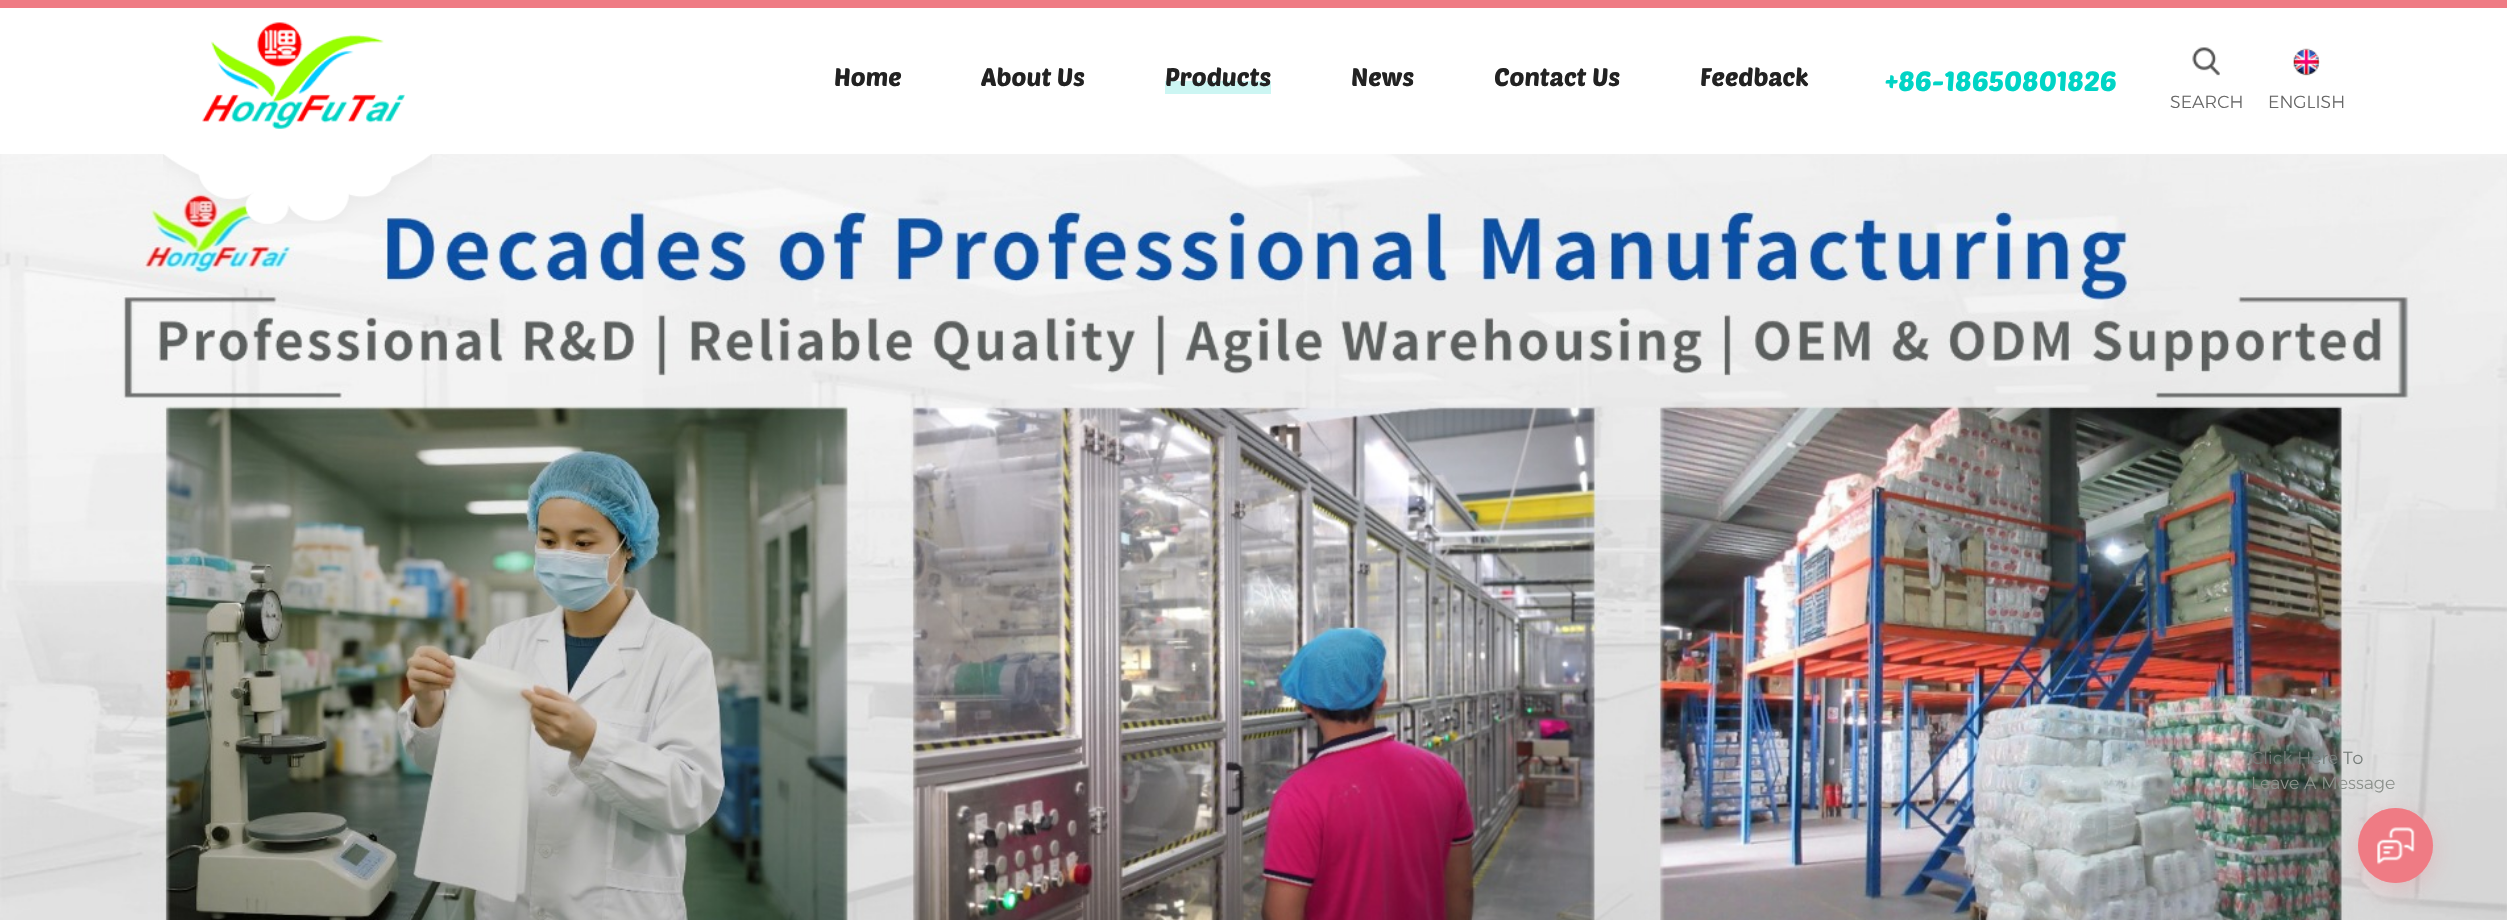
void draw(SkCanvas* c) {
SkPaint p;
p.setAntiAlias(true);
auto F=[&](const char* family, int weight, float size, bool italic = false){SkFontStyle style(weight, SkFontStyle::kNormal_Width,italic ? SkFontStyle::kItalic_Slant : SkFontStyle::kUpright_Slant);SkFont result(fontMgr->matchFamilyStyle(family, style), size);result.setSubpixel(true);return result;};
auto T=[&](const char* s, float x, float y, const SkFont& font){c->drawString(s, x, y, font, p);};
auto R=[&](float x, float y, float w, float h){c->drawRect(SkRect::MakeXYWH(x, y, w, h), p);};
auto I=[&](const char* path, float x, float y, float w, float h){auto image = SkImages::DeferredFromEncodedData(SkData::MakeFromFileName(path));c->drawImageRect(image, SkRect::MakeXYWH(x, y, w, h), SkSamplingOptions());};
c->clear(0xffffffff);
p.setColor(0xffef7b84);
R(0,0,2507,8);
I("1.png",202,22,203,107);
I("5.png",0,154,2507,766);
I("2.png",163,154,269,70);
auto f1 = F("PoetsenOne",400,25);
p.setColor(0xff222222);
T("Home",834,86,f1);
T("About Us",981,86,f1);
p.setColor(0xffccf6f3);
R(1165,81,106,13);
p.setColor(0xff222222);
T("Products",1165,86,f1);
T("News",1351,86,f1);
T("Contact Us",1494,86,f1);
T("Feedback",1700,86,f1);
auto f2 = F("PoetsenOne",400,27.5);
p.setColor(0xff00d4c5);
T("+86-18650801826",1885,91,f2);
I("3.png",2192,47,28,29);
auto f3 = F("Montserrat",300,17.5);
p.setColor(0xff666666);
T("SEARCH",2170,108,f3);
I("4.png",2293,48,27,28);
T("ENGLISH",2268,108,f3);
p.setColor(0x4def7b84);
p.setMaskFilter(SkMaskFilter::MakeBlur(kNormal_SkBlurStyle, 12.5));
c->drawRoundRect(SkRect::MakeXYWH(2358,814,75,75),37.5,37.5,p);
p.setMaskFilter(nullptr);
p.setColor(0xffef7b84);
c->drawCircle(2395.5,845.5,37.5,p);
p.setColor(0xff747b78);
T("Click Here To",2251,764,f3);
p.setColor(0xff8c918c);
T("Leave A Message",2251,789,f3);
p.setColor(0x40ef7b84);
c->drawCircle(2395.5,845.5,37.5,p);
c->drawCircle(2395.5,845.5,37.5,p);
c->drawCircle(2395.5,845.5,37.5,p);
I("6.png",2377,827,38,38);
}
